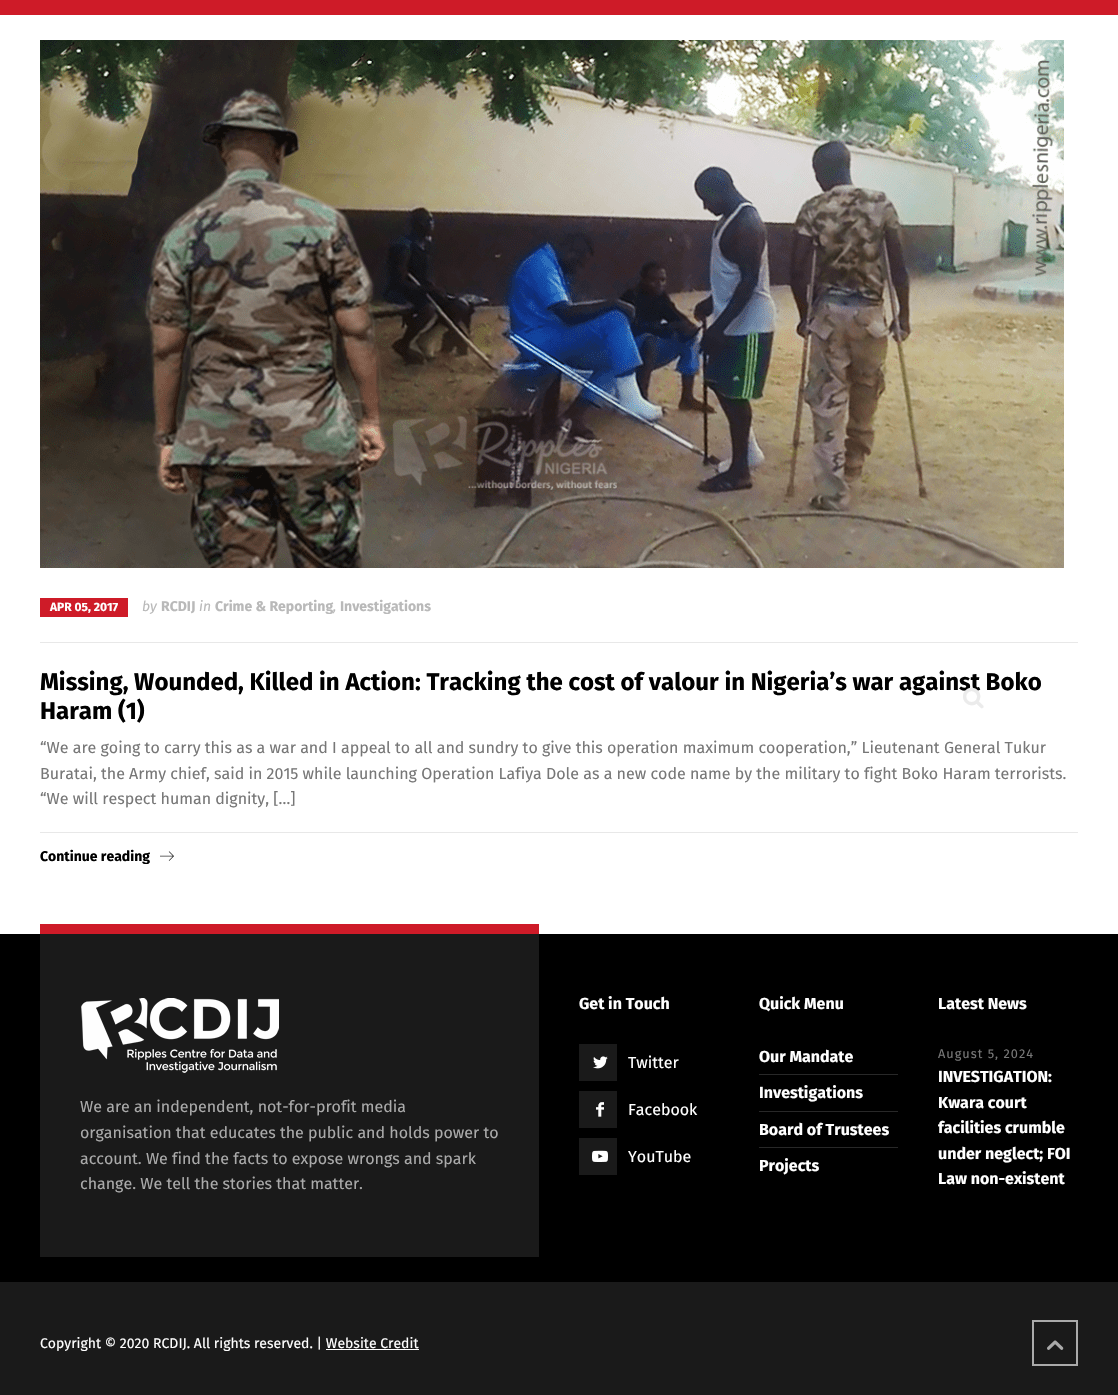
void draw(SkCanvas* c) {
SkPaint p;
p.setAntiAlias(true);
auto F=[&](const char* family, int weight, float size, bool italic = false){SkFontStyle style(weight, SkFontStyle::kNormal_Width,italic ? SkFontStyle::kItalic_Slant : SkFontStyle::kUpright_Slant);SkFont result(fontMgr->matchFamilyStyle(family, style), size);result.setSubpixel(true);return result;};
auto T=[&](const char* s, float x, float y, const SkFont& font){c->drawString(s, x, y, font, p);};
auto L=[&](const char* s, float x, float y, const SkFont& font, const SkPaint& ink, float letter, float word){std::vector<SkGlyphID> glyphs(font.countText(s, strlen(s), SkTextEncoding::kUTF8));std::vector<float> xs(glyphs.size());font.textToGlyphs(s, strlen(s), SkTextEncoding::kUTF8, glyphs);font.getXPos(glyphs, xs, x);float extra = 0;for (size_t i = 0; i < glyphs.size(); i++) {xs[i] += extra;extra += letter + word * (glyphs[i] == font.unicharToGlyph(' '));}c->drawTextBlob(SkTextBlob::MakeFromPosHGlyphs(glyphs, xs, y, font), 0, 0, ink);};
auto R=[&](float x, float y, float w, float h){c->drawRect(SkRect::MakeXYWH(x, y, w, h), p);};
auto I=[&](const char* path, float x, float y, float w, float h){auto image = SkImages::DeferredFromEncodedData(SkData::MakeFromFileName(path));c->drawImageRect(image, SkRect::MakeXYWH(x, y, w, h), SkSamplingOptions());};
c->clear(0xffffffff);
p.setColor(0xffce1b28);
R(0,0,1118,15);
I("1.png",40,40,1024,528);
R(40,598,88,19);
auto f1 = F("Fira Sans",700,12);
p.setColor(0xffffffff);
T("APR 05, 2017",50,611,f1);
auto f2 = F("Fira Sans",400,14,true);
p.setColor(0xffb9b9b9);
T("by",142,611,f2);
auto f3 = F("Fira Sans",700,14);
T("RCDIJ",161,611,f3);
T("in",199,611,f2);
T("Crime & Reporting",215,611,f3);
T("Investigations",340,611,f3);
T(",",333,611,f2);
p.setColor(0xffe8e8e8);
R(40,642,1038,1);
auto f4 = F("Fira Sans",700,24);
p.setColor(0xff000000);
T("Missing, Wounded, Killed in Action: Tracking the cost of valour in Nigeria’s war against Boko",40,690,f4);
T("Haram (1)",40,719,f4);
auto f5 = F("Fira Sans",400,16);
p.setColor(0xff777777);
T("“We are going to carry this as a war and I appeal to all and sundry to give this operation maximum cooperation,” Lieutenant General Tukur",40,753,f5);
T("Buratai, the Army chief, said in 2015 while launching Operation Lafiya Dole as a new code name by the military to fight Boko Haram terrorists.",40,779,f5);
T("“We will respect human dignity, […]",40,804,f5);
p.setColor(0xffe8e8e8);
R(40,832,1038,1);
p.setColor(0xff000000);
T("Continue reading",40,861,f3);
I("2.png",160,851,14,10);
R(0,934,1118,348);
p.setColor(0xff1a1a1a);
R(40,934,499,323);
p.setColor(0xffce1b28);
R(40,924,499,10);
I("3.png",81,998,198,75);
p.setColor(0xffaaaaaa);
T("We are an independent, not-for-profit media",80,1112,f5);
T("organisation that educates the public and holds power to",80,1138,f5);
T("account. We find the facts to expose wrongs and spark",80,1164,f5);
T("change. We tell the stories that matter.",80,1189,f5);
auto f6 = F("Fira Sans",700,16);
p.setColor(0xffffffff);
T("Get in Touch",579,1009,f6);
p.setColor(0xff1a1a1a);
R(579,1044,38,37);
I("4.png",593,1056,15,13);
p.setColor(0xffffffff);
T("Twitter",628,1068,f5);
p.setColor(0xff1a1a1a);
R(579,1091,38,37);
auto f7 = F("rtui",400,16);
p.setColor(0xffffffff);
T("9",596,1115,f7);
T("Facebook",628,1115,f5);
p.setColor(0xff1a1a1a);
R(579,1138,38,37);
I("5.png",592,1150,16,12);
p.setColor(0xffffffff);
T("YouTube",628,1162,f5);
T("Quick Menu",759,1009,f6);
p.setColor(0xff282828);
R(759,1074,139,1);
p.setColor(0xffffffff);
T("Our Mandate",759,1062,f6);
p.setColor(0xff282828);
R(759,1111,139,1);
p.setColor(0xffffffff);
T("Investigations",759,1098,f6);
p.setColor(0xff282828);
R(759,1147,139,1);
p.setColor(0xffffffff);
T("Board of Trustees",759,1135,f6);
T("Projects",759,1171,f6);
T("Latest News",938,1009,f6);
auto f8 = F("Fira Sans",400,12.75);
p.setColor(0xff777777);
L("August 5, 2024",938,1058,f8,p,1,0);
p.setColor(0xffffffff);
T("INVESTIGATION:",938,1082,f6);
T("Kwara court",938,1108,f6);
T("facilities crumble",938,1133,f6);
T("under neglect; FOI",938,1159,f6);
T("Law non-existent",938,1184,f6);
p.setColor(0xff1a1a1a);
R(0,1282,1118,113);
auto f9 = F("Fira Sans",400,14);
p.setColor(0xffffffff);
T("Copyright © 2020 RCDIJ. All rights reserved. | Website Credit",40,1348,f9);
R(326,1349,93,1);
p.setStroke(true);
p.setStrokeWidth(2);
p.setColor(0xffaaaaaa);
c->drawRect(SkRect::MakeXYWH(1033,1321,44,44),p);
I("6.png",1047,1340,17,10);
auto f10 = F("rtui",400,22);
p.setStroke(false);
p.setColor(0xffebebeb);
T("!",963,705,f10);
}
